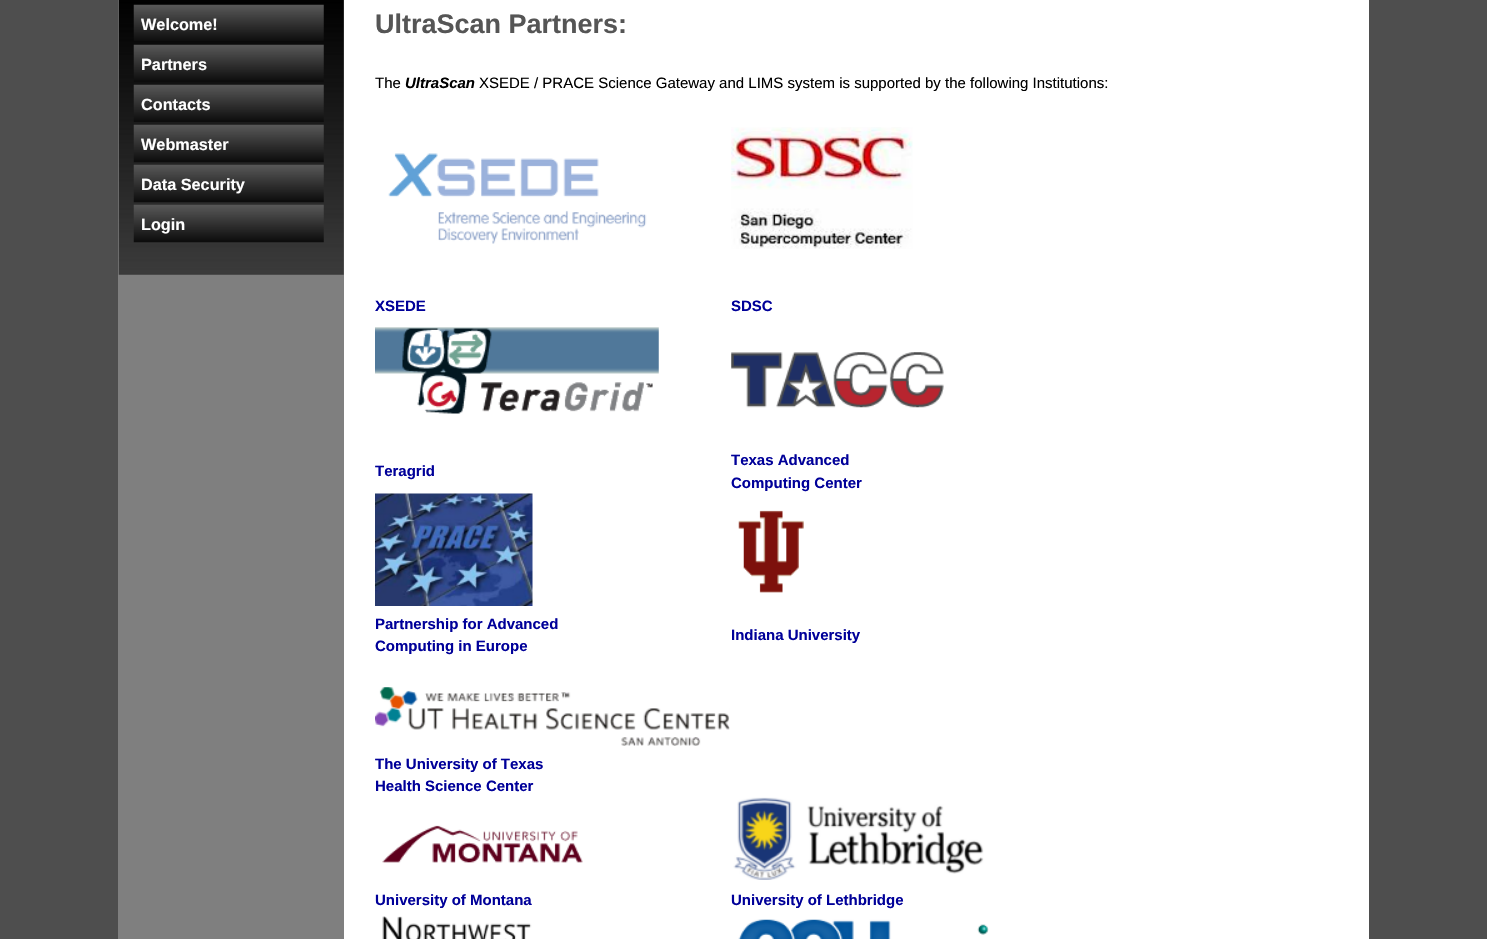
void draw(SkCanvas* c) {
SkPaint p;
p.setAntiAlias(true);
auto F=[&](const char* family, int weight, float size, bool italic = false){SkFontStyle style(weight, SkFontStyle::kNormal_Width,italic ? SkFontStyle::kItalic_Slant : SkFontStyle::kUpright_Slant);SkFont result(fontMgr->matchFamilyStyle(family, style), size);result.setSubpixel(true);return result;};
auto T=[&](const char* s, float x, float y, const SkFont& font){c->drawString(s, x, y, font, p);};
auto R=[&](float x, float y, float w, float h){c->drawRect(SkRect::MakeXYWH(x, y, w, h), p);};
auto I=[&](const char* path, float x, float y, float w, float h){auto image = SkImages::DeferredFromEncodedData(SkData::MakeFromFileName(path));c->drawImageRect(image, SkRect::MakeXYWH(x, y, w, h), SkSamplingOptions());};
c->clear(0xff4e4e4e);
p.setColor(0xffffffff);
R(344,0,1025,939);
p.setColor(0xff7f7f7f);
R(118,0,226,939);
I("1.png",118,0,226,275);
I("2.png",133,4,191,37);
auto f1 = F("Liberation Sans",700,16.25);
p.setColor(0xffffffff);
T("Welcome!",141,30,f1);
I("3.png",133,44,191,38);
T("Partners",141,70,f1);
I("4.png",133,84,191,38);
T("Contacts",141,110,f1);
I("5.png",133,124,191,39);
T("Webmaster",141,150,f1);
I("6.png",133,164,191,39);
T("Data Security",141,190,f1);
I("7.png",133,204,191,39);
T("Login",141,230,f1);
auto f2 = F("Liberation Sans",700,27);
p.setColor(0xff555555);
T("UltraScan Partners:",375,33,f2);
auto f3 = F("Liberation Sans",400,15);
p.setColor(0xff000000);
T("The",375,88,f3);
auto f4 = F("Liberation Sans",700,15,true);
T("UltraScan",405,88,f4);
T("XSEDE / PRACE Science Gateway and LIMS system is supported by the following Institutions:",479,88,f3);
I("8.png",388,153,259,91);
I("9.png",731,127,182,122);
auto f5 = F("Liberation Sans",700,15);
p.setColor(0xff000099);
T("XSEDE",375,311,f5);
T("SDSC",731,311,f5);
I("10.png",375,327,284,87);
I("11.png",731,352,213,56);
T("Teragrid",375,476,f5);
T("Texas Advanced",731,465,f5);
T("Computing Center",731,488,f5);
I("12.png",375,493,158,113);
I("13.png",738,510,66,83);
T("Partnership for Advanced",375,629,f5);
T("Computing in Europe",375,651,f5);
T("Indiana University",731,640,f5);
I("14.png",375,687,355,59);
T("The University of Texas",375,769,f5);
T("Health Science Center",375,791,f5);
I("15.png",382,825,201,38);
I("16.png",733,797,251,83);
T("University of Montana",375,905,f5);
T("University of Lethbridge",731,905,f5);
I("17.png",382,916,150,23);
I("18.png",738,919,251,20);
}
